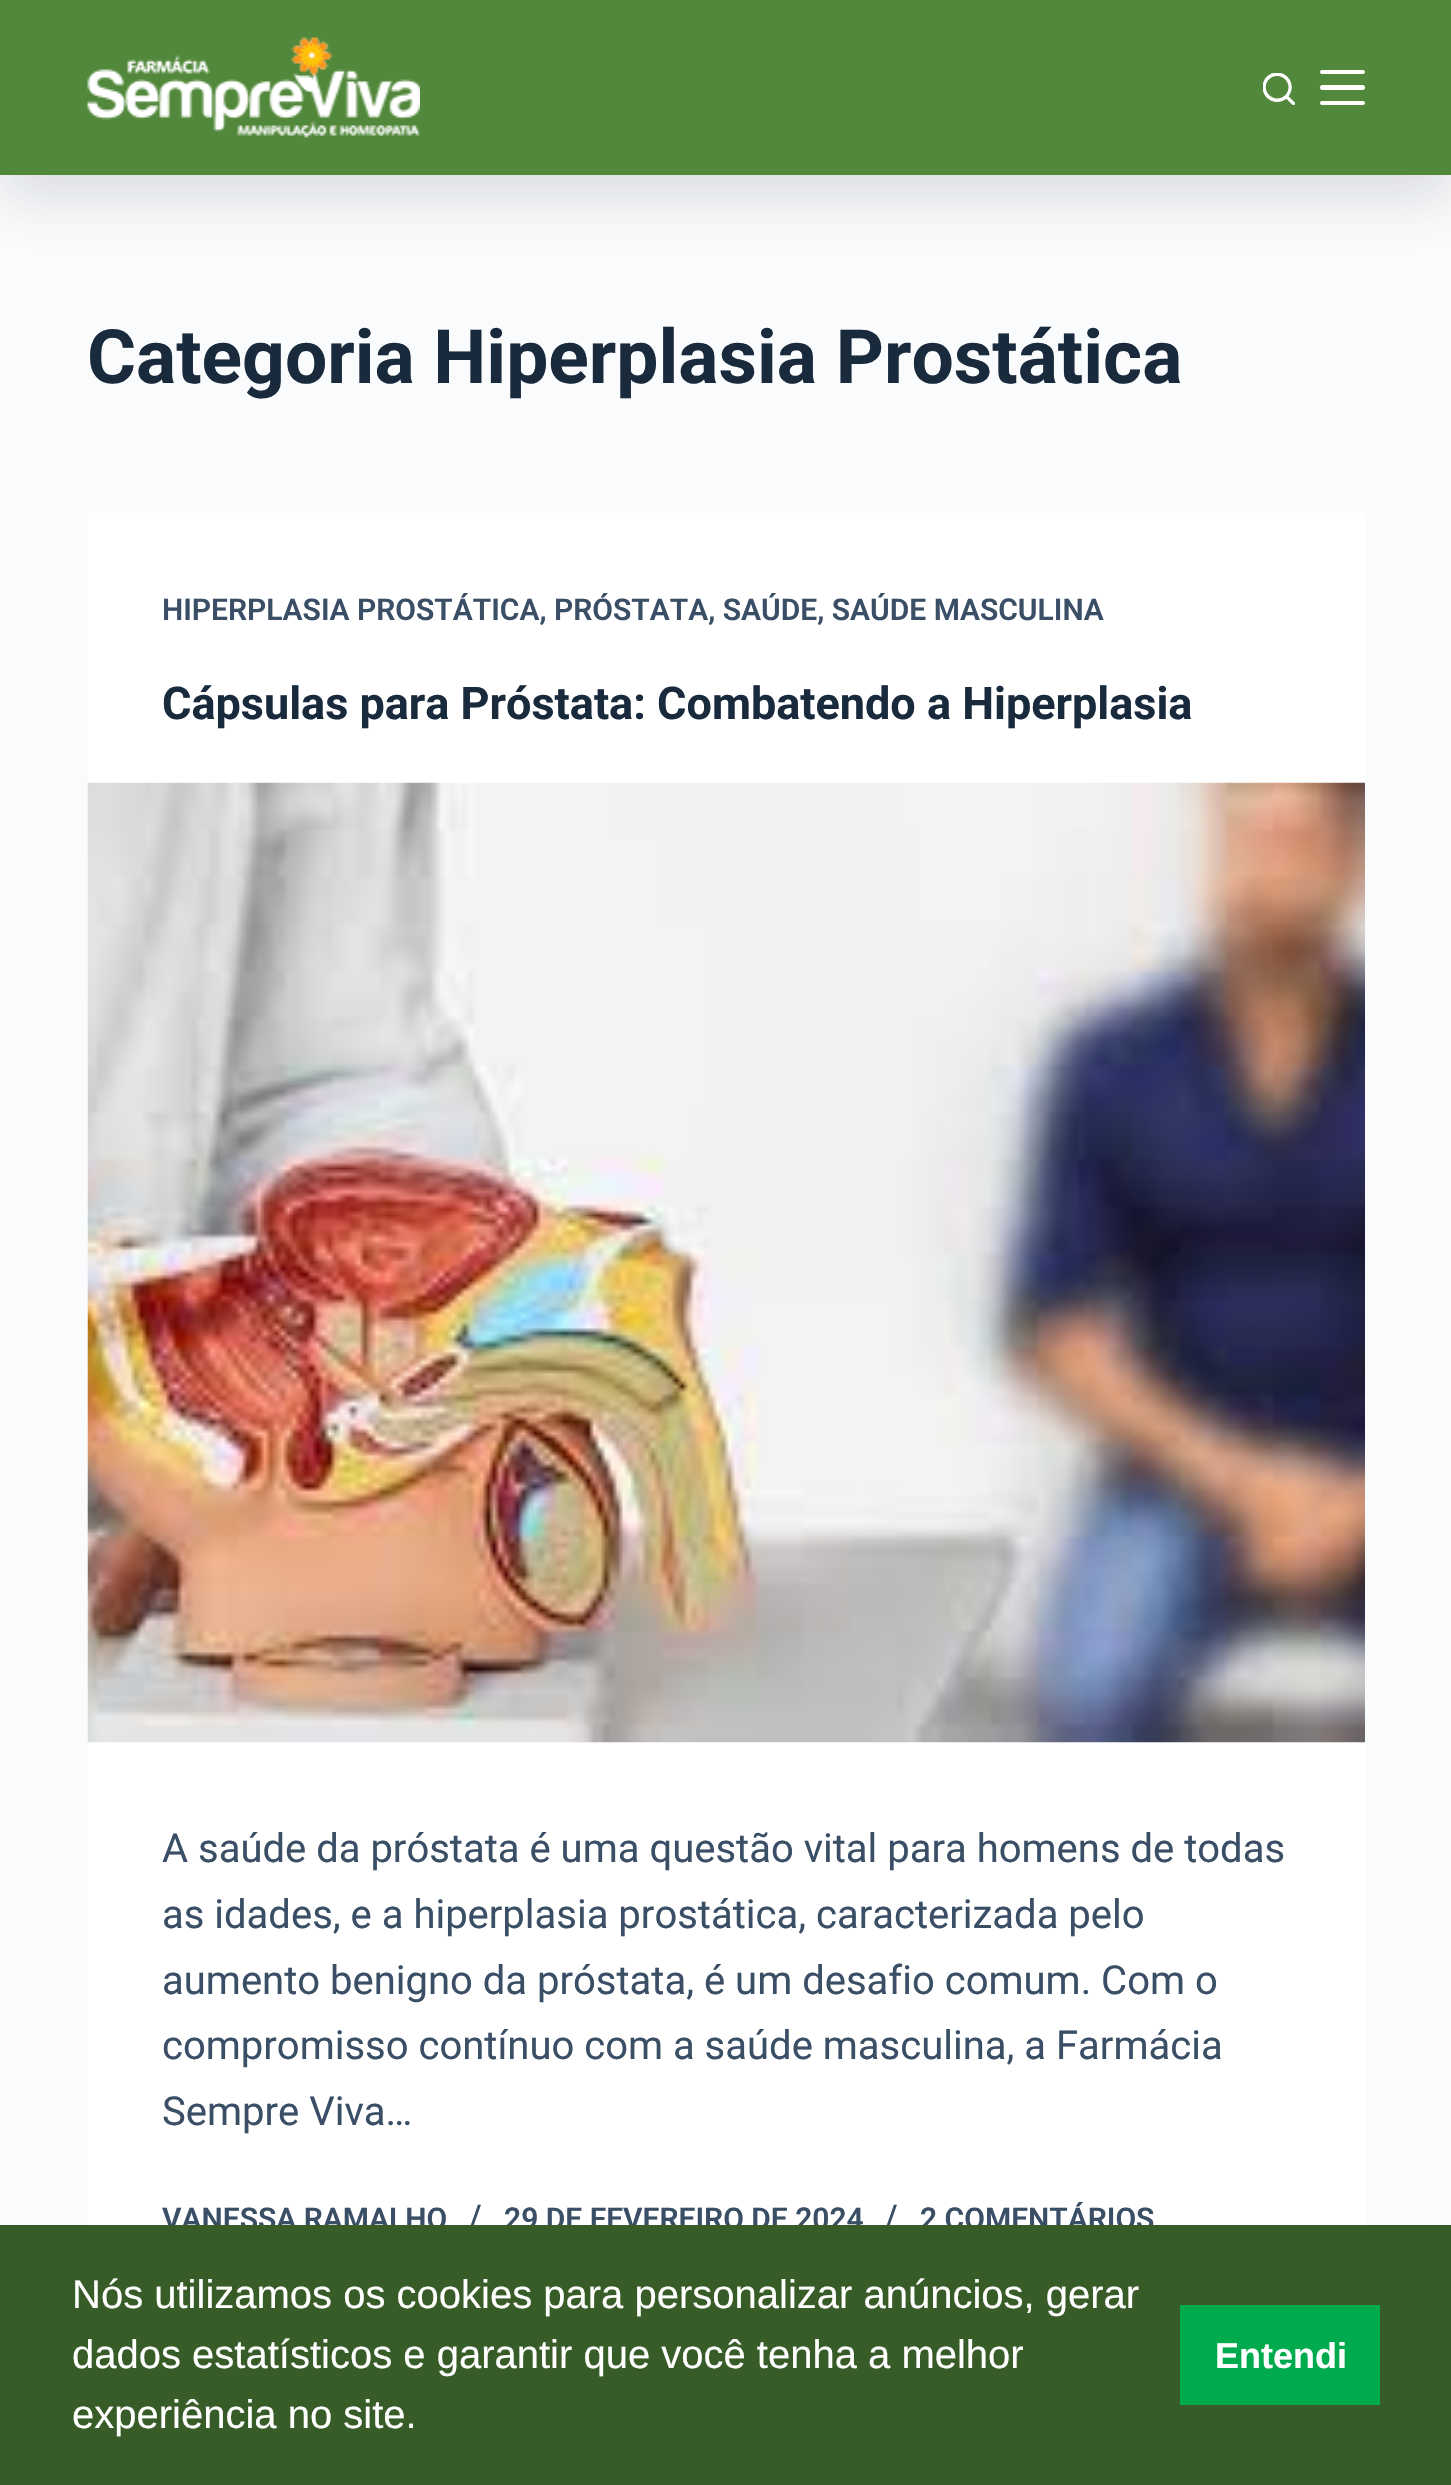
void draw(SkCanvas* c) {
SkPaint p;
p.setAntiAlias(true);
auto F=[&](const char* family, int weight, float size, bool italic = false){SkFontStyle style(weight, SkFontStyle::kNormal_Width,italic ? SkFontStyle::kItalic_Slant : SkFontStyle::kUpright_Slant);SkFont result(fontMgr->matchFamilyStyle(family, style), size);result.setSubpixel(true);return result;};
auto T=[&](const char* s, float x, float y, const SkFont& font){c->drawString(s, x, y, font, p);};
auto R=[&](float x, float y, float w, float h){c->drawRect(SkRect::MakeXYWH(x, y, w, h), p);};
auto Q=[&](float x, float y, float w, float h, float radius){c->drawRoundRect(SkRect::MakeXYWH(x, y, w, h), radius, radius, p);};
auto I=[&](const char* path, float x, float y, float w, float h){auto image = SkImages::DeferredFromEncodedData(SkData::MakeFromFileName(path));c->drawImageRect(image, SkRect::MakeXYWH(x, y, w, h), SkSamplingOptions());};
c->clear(0xfffafbfc);
p.setColor(0x262c3e50);
p.setMaskFilter(SkMaskFilter::MakeBlur(kNormal_SkBlurStyle, 25));
c->drawRect(SkRect::MakeXYWH(0,25,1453,175),p);
p.setMaskFilter(nullptr);
p.setColor(0xff52883b);
R(0,0,1451,175);
I("1.png",87,37,333,101);
I("2.png",1263,73,32,32);
p.setColor(0xffffffff);
Q(1320,70,45,4,2);
Q(1320,85,45,5,2.5);
Q(1320,101,45,4,2);
auto f1 = F("Roboto",700,75);
p.setColor(0xff192a3d);
T("Categoria Hiperplasia Prostática",87,383,f1);
p.setColor(0xffffffff);
R(88,513,1277,1712);
auto f2 = F("Roboto",600,30);
p.setColor(0xff3a4f66);
T("HIPERPLASIA PROSTÁTICA, PRÓSTATA, SAÚDE, SAÚDE MASCULINA",162,620,f2);
auto f3 = F("Roboto",700,45);
p.setColor(0xff192a3d);
T("Cápsulas para Próstata: Combatendo a Hiperplasia",162,719,f3);
I("3.png",87,782,1278,961);
auto f4 = F("Roboto",400,40);
p.setColor(0xff3a4f66);
T("A saúde da próstata é uma questão vital para homens de todas",162,1862,f4);
T("as idades, e a hiperplasia prostática, caracterizada pelo",162,1928,f4);
T("aumento benigno da próstata, é um desafio comum. Com o",162,1994,f4);
T("compromisso contínuo com a saúde masculina, a Farmácia",162,2059,f4);
T("Sempre Viva…",162,2125,f4);
T("VANESSA RAMALHO",162,2229,f2);
T("/",470,2226,f2);
T("29 DE FEVEREIRO DE 2024",504,2229,f2);
T("/",886,2226,f2);
T("2 COMENTÁRIOS",920,2229,f2);
p.setColor(0xff385c28);
R(0,2225,1451,260);
auto f5 = F("Liberation Sans",400,40);
p.setColor(0xffffffff);
T("Nós utilizamos os cookies para personalizar anúncios, gerar",72,2308,f5);
T("dados estatísticos e garantir que você tenha a melhor",72,2368,f5);
T("experiência no site.",72,2428,f5);
p.setColor(0xff00ab4e);
R(1180,2305,200,100);
auto f6 = F("Liberation Sans",700,36);
p.setColor(0xffffffff);
T("Entendi",1215,2368,f6);
}
